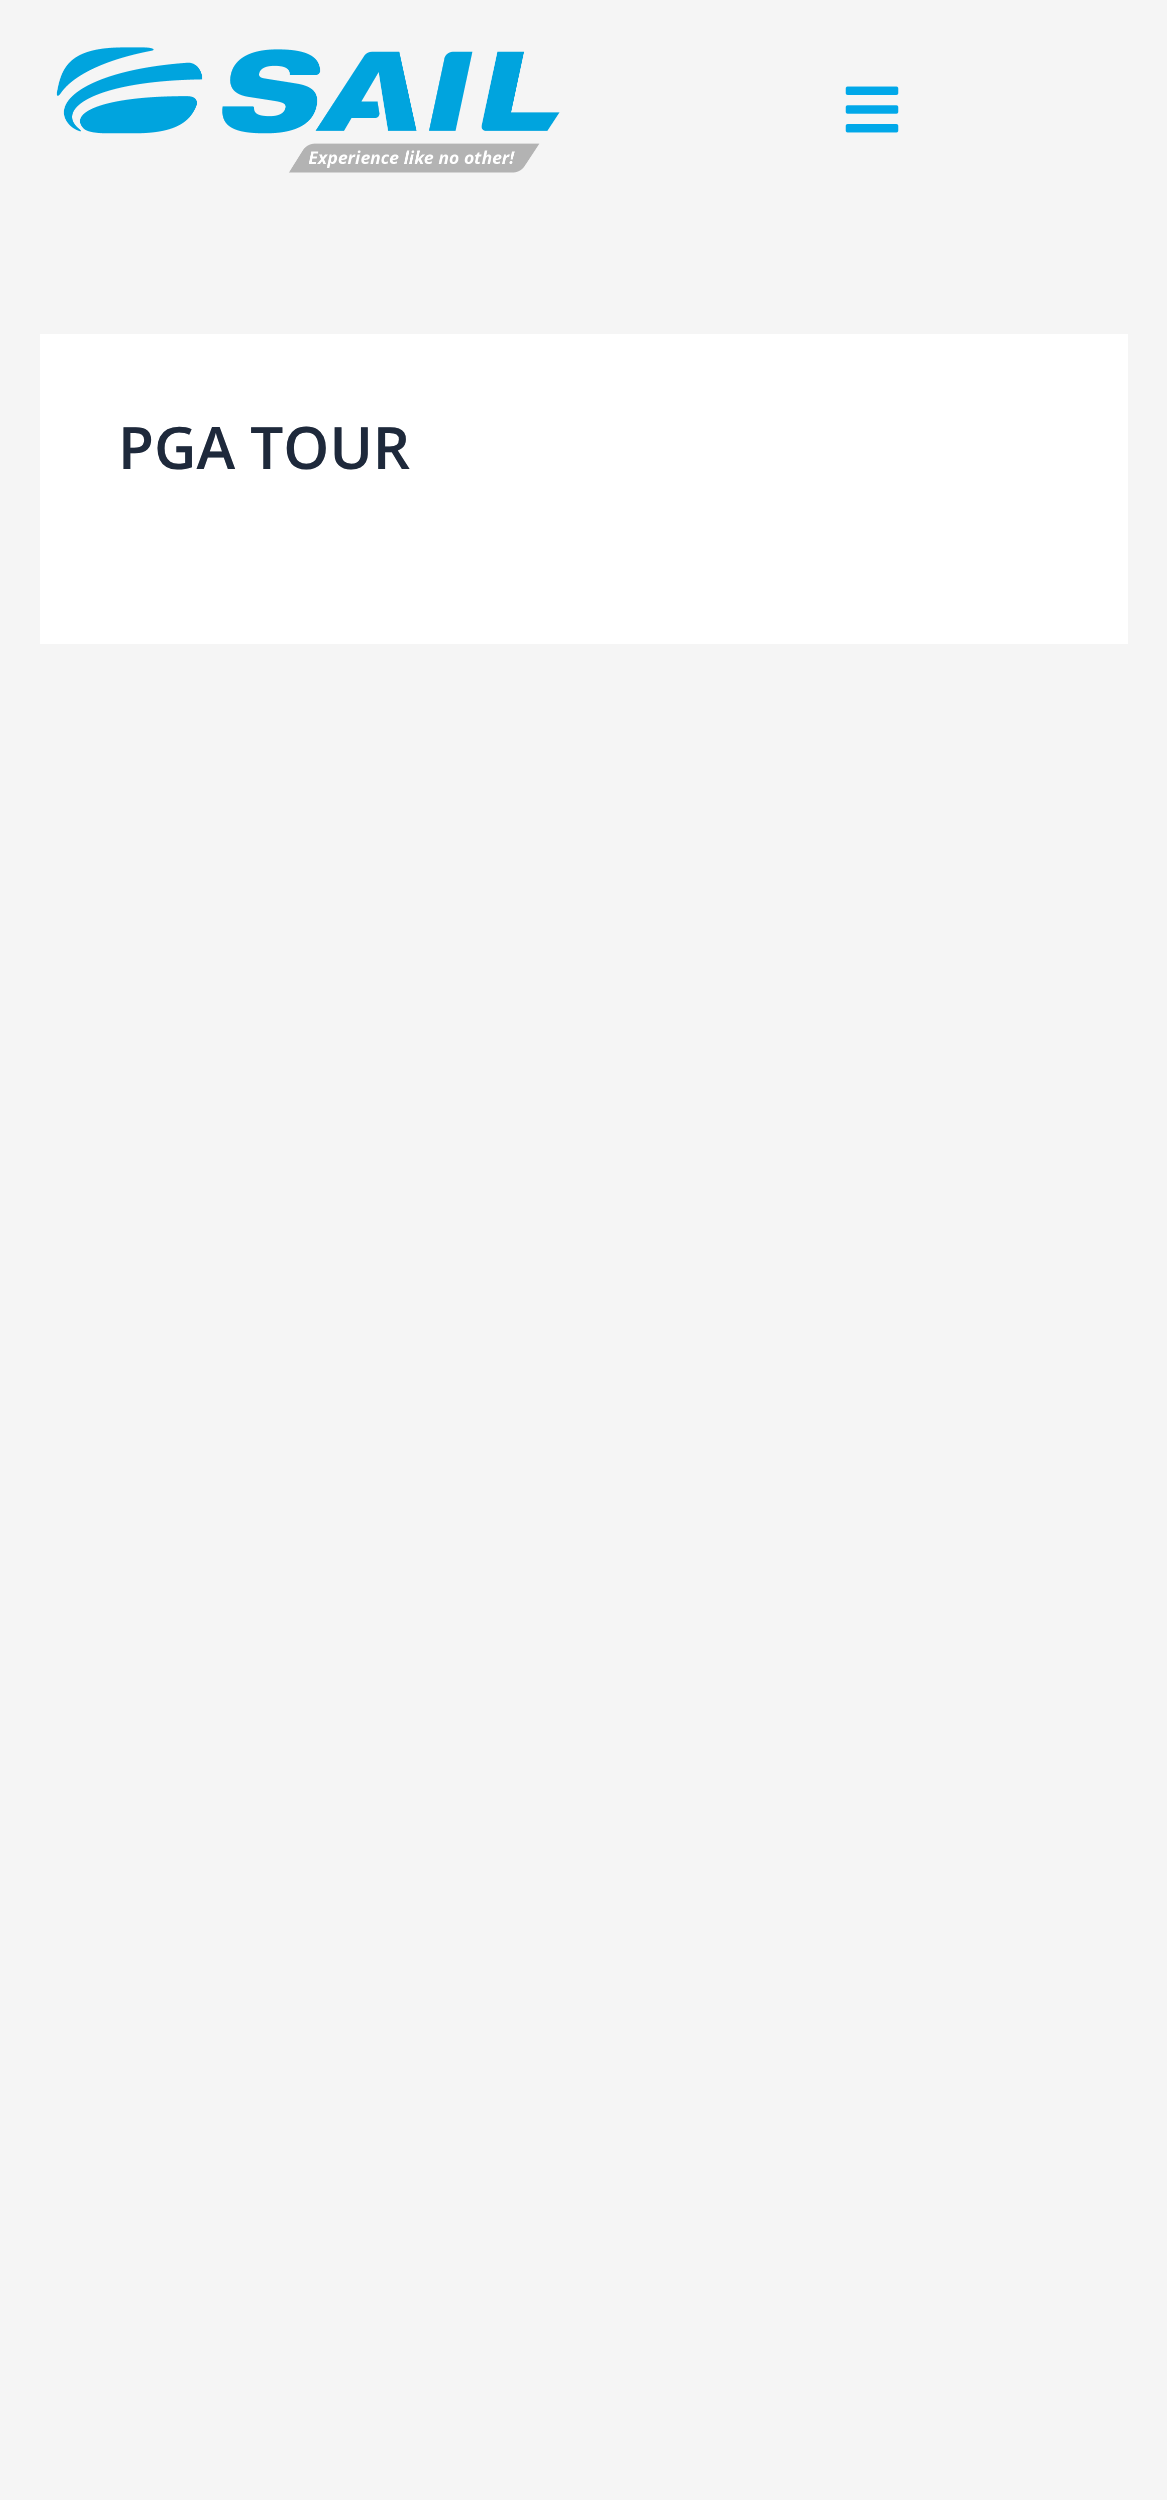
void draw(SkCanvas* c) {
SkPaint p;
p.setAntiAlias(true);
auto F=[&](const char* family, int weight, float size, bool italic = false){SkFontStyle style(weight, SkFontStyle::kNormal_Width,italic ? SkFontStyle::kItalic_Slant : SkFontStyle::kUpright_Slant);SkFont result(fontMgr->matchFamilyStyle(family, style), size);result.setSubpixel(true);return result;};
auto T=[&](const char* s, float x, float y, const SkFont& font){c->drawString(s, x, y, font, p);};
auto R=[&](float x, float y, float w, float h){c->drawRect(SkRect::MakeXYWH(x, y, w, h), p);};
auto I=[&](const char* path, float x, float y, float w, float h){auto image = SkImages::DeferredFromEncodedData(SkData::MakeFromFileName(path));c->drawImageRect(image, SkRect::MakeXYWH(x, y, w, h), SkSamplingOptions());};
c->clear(0xfff5f5f5);
I("1.png",56,47,504,126);
I("2.png",845,86,54,47);
p.setColor(0xffffffff);
R(40,334,1088,310);
auto f1 = F("Open Sans",600,58.5);
p.setColor(0xff1e293b);
T("PGA TOUR",118,469,f1);
}
